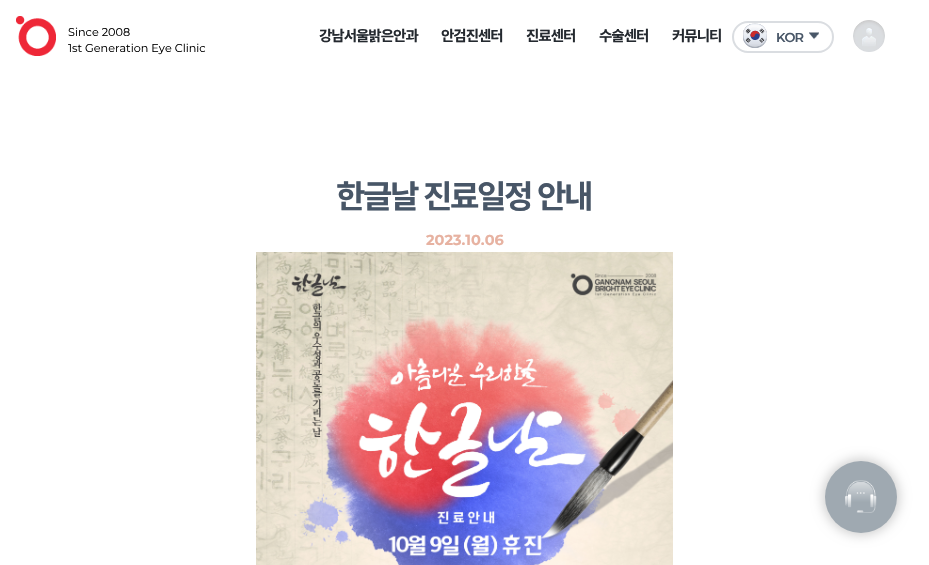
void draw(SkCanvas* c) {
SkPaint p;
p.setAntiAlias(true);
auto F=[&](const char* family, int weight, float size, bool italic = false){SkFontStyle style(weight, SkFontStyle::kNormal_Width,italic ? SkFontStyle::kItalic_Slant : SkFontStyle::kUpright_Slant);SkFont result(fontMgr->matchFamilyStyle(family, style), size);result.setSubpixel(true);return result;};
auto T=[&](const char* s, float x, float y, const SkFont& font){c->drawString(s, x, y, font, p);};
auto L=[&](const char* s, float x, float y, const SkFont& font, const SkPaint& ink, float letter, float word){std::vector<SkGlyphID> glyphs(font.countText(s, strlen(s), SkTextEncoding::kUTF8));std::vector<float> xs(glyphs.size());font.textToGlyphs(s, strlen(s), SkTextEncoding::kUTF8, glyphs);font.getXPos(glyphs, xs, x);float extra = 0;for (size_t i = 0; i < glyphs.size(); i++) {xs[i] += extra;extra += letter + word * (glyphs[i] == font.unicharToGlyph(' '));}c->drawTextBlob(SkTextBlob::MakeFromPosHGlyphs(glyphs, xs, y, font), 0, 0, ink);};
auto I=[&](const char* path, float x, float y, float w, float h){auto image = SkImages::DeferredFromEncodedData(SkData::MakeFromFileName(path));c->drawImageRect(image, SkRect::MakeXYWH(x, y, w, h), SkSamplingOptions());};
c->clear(0xffffffff);
I("1.png",16,16,40,40);
auto f1 = F("Montserrat",400,11.25);
p.setColor(0xff000000);
T("Since 2008",68,36,f1);
T("1st Generation Eye Clinic",68,52,f1);
auto f2 = F("Noto Sans KR",700,14.5);
p.setColor(0xff24292f);
L("강남서울밝은안과",319,41,f2,p,-1,0);
L("안검진센터",441,41,f2,p,-1,0);
L("진료센터",526,41,f2,p,-1,0);
L("수술센터",599,41,f2,p,-1,0);
L("커뮤니티",672,41,f2,p,-1,0);
p.setStroke(true);
p.setStrokeWidth(2);
p.setColor(0xffdadde1);
c->drawRoundRect(SkRect::MakeXYWH(733,22,100,30),15,15,p);
I("2.png",743,23,24,25);
auto f3 = F("Montserrat",600,13);
p.setStroke(false);
p.setColor(0xff485667);
L("KOR",776,42,f3,p,-1,0);
I("3.png",809,32,10,8);
I("4.png",853,20,32,32);
p.setColor(0x33020202);
p.setMaskFilter(SkMaskFilter::MakeBlur(kNormal_SkBlurStyle, 6));
c->drawRoundRect(SkRect::MakeXYWH(823,459,76,76),38,38,p);
p.setMaskFilter(nullptr);
p.setColor(0xff9fa9b1);
c->drawCircle(861,497,36,p);
I("5.png",845,480,32,33);
auto f4 = F("Noto Sans KR",700,32);
p.setColor(0xff485667);
L("한글날 진료일정 안내",336,208,f4,p,-2.4,1);
auto f5 = F("Montserrat",700,14.5);
p.setColor(0xffe7b2a1);
T("2023.10.06",426,245,f5);
I("6.png",256,252,417,313);
}
